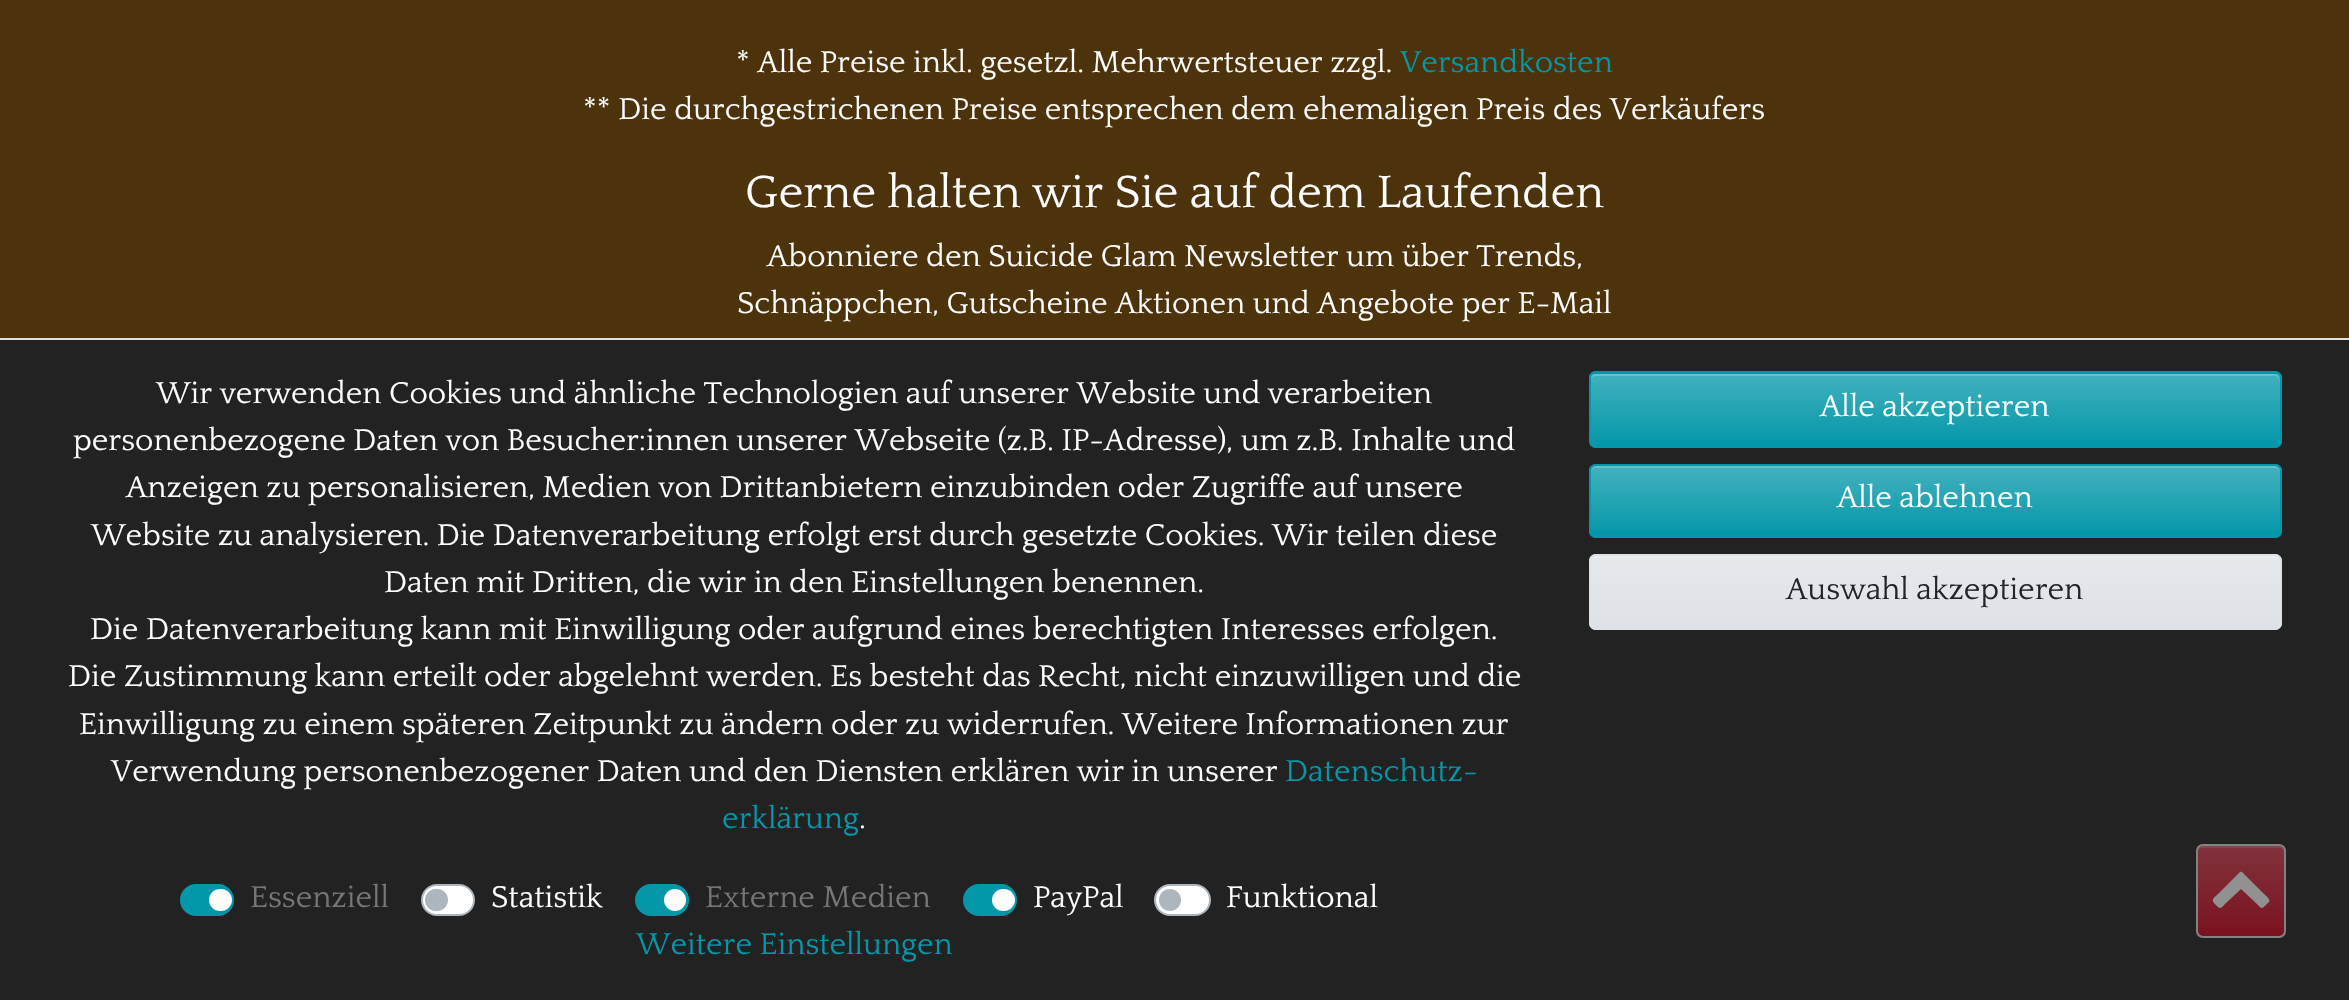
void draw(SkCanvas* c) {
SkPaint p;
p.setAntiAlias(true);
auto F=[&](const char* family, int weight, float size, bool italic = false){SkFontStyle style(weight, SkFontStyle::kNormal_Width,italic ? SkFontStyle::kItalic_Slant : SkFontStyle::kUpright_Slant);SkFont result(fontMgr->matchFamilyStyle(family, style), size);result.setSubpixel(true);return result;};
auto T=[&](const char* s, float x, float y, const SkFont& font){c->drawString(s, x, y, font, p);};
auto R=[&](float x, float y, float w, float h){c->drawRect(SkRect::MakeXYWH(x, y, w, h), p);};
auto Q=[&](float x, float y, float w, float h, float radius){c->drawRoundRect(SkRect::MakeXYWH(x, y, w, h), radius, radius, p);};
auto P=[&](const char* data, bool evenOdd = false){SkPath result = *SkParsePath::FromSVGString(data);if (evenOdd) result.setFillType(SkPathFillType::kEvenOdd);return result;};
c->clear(0xff4c330b);
auto f1 = F("Quattrocento",400,31.5);
p.setColor(0xffffffff);
T("* Alle Preise inkl. gesetzl. Mehrwertsteuer zzgl.",736,72,f1);
p.setColor(0xff0397a9);
T("Versandkosten",1400,72,f1);
p.setColor(0xffffffff);
T("** Die durchgestrichenen Preise entsprechen dem ehemaligen Preis des Verkäufers",583,119,f1);
auto f2 = F("Quattrocento",400,47.25);
T("Gerne halten wir Sie auf dem Laufenden",745,207,f2);
T("Abonniere den Suicide Glam Newsletter um über Trends,",767,266,f1);
T("Schnäppchen, Gutscheine Aktionen und Angebote per E-Mail",737,313,f1);
p.setColor(0xff222222);
R(0,340,2349,660);
p.setColor(0xffdee2e6);
R(0,338,2349,2);
p.setColor(0xffffffff);
T("Wir verwenden Cookies und ähnliche Technologien auf unserer Website und verarbeiten",156,403,f1);
T("personenbezogene Daten von Besucher:innen unserer Webseite (z.B. IP-Adresse), um z.B. Inhalte und",73,450,f1);
T("Anzeigen zu personalisieren, Medien von Drittanbietern einzubinden oder Zugriffe auf unsere",126,497,f1);
T("Website zu analysieren. Die Datenverarbeitung erfolgt erst durch gesetzte Cookies. Wir teilen diese",91,545,f1);
T("Daten mit Dritten, die wir in den Einstellungen benennen.",384,592,f1);
T("Die Datenverarbeitung kann mit Einwilligung oder aufgrund eines berechtigten Interesses erfolgen.",90,639,f1);
T("Die Zustimmung kann erteilt oder abgelehnt werden. Es besteht das Recht, nicht einzuwilligen und die",68,686,f1);
T("Einwilligung zu einem späteren Zeitpunkt zu ändern oder zu widerrufen. Weitere Informationen zur",79,734,f1);
T("Verwendung personenbezogener Daten und den Diensten erklären wir in unserer",111,781,f1);
p.setColor(0xff0397a9);
T("Datenschutz-",1285,781,f1);
T("erklärung",722,828,f1);
p.setColor(0xffffffff);
T(".",859,828,f1);
p.setColor(0xff0397a9);
c->drawRoundRect(SkRect::MakeXYWH(181,885,52,30),15,15,p);
p.setStroke(true);
p.setStrokeWidth(2);
c->drawRoundRect(SkRect::MakeXYWH(181,885,52,30),15,15,p);
p.setStroke(false);
p.setColor(0xff767676);
T("Essenziell",250,907,f1);
p.setColor(0xffffffff);
Q(209,889,23,22,11);
c->drawRoundRect(SkRect::MakeXYWH(422,885,52,30),15,15,p);
p.setStroke(true);
p.setColor(0xffadb5bd);
c->drawRoundRect(SkRect::MakeXYWH(422,885,52,30),15,15,p);
p.setStroke(false);
p.setColor(0xffffffff);
T("Statistik",491,907,f1);
p.setColor(0xffadb5bd);
Q(425,889,23,22,11);
p.setColor(0xff0397a9);
c->drawRoundRect(SkRect::MakeXYWH(636,885,52,30),15,15,p);
p.setStroke(true);
c->drawRoundRect(SkRect::MakeXYWH(636,885,52,30),15,15,p);
p.setStroke(false);
p.setColor(0xff767676);
T("Externe Medien",705,907,f1);
p.setColor(0xffffffff);
c->drawCircle(675,900,11,p);
p.setColor(0xff0397a9);
c->drawRoundRect(SkRect::MakeXYWH(964,885,52,30),15,15,p);
p.setStroke(true);
c->drawRoundRect(SkRect::MakeXYWH(964,885,52,30),15,15,p);
p.setStroke(false);
p.setColor(0xffffffff);
T("PayPal",1033,907,f1);
Q(992,889,23,22,11);
c->drawRoundRect(SkRect::MakeXYWH(1155,885,55,30),15,15,p);
p.setStroke(true);
p.setColor(0xffadb5bd);
c->drawRoundRect(SkRect::MakeXYWH(1155,885,55,30),15,15,p);
p.setStroke(false);
p.setColor(0xffffffff);
T("Funktional",1226,907,f1);
p.setColor(0xffadb5bd);
c->drawCircle(1170,900,11,p);
p.setColor(0xff0397a9);
T("Weitere Einstellungen",636,954,f1);
Q(1589,371,693,77,7);
c->save();
c->clipPath(P("M1596 371h679c4 0 7 3 7 7v63c0 4-3 7-7 7h-679c-4 0-7-3-7-7v-63c0-4 3-7 7-7z"),true);
{
const SkColor colors[] = {0x40ffffff,0x00ffffff};
const float stops[] = {0,1};
const SkPoint ends[] = {{1935,373}, {1935,446}};
p.setShader(SkGradientShader::MakeLinear(ends, colors, stops, 2, SkTileMode::kClamp));
p.setAlpha(255);
}
R(1589,374,693,66);
c->restore();
p.setShader(nullptr);
p.setColor(0xff66c0cb);
c->drawPath(P("M1595 376h680c2 0 4 2 4 4v-1c0-3-2-5-5-5h-678c-3 0-5 2-5 5v1c0-2 2-4 4-4z"),p);
p.setStroke(true);
p.setColor(0xff0397a9);
c->drawRoundRect(SkRect::MakeXYWH(1590,372,691,75),6,6,p);
p.setStroke(false);
p.setColor(0xffffffff);
T("Alle akzeptieren",1820,416,f1);
p.setColor(0xff0397a9);
Q(1589,464,693,74,7);
c->save();
c->clipPath(P("M1596 464h679c4 0 7 3 7 7v60c0 4-3 7-7 7h-679c-4 0-7-3-7-7v-60c0-4 3-7 7-7z"),true);
{
const SkColor colors[] = {0x40ffffff,0x00ffffff};
const float stops[] = {0,1};
const SkPoint ends[] = {{1935,466}, {1935,536}};
p.setShader(SkGradientShader::MakeLinear(ends, colors, stops, 2, SkTileMode::kClamp));
p.setAlpha(255);
}
R(1589,466,693,64);
c->restore();
p.setShader(nullptr);
p.setColor(0xff67c0cb);
c->drawPath(P("M1595 468h680c2 0 4 2 4 4v-1c0-3-2-5-5-5h-678c-3 0-5 2-5 5v1c0-2 2-4 4-4z"),p);
p.setStroke(true);
p.setColor(0xff0397a9);
c->drawRoundRect(SkRect::MakeXYWH(1590,465,691,72),6,6,p);
p.setStroke(false);
p.setColor(0xffffffff);
T("Alle ablehnen",1837,507,f1);
p.setColor(0xffdee2e6);
Q(1589,554,693,76,7);
c->save();
c->clipPath(P("M1596 554h679c4 0 7 3 7 7v62c0 4-3 7-7 7h-679c-4 0-7-3-7-7v-62c0-4 3-7 7-7z"),true);
{
const SkColor colors[] = {0x40ffffff,0x00ffffff};
const float stops[] = {0,1};
const SkPoint ends[] = {{1935,556}, {1935,628}};
p.setShader(SkGradientShader::MakeLinear(ends, colors, stops, 2, SkTileMode::kClamp));
p.setAlpha(255);
}
R(1589,556,693,66);
c->restore();
p.setShader(nullptr);
p.setColor(0xffebedf0);
c->drawPath(P("M1595 558h680c2 0 4 2 4 4v-1c0-3-2-5-5-5h-678c-3 0-5 2-5 5v1c0-2 2-4 4-4z"),p);
p.setStroke(true);
p.setColor(0xffdee2e6);
c->drawRoundRect(SkRect::MakeXYWH(1590,555,691,74),6,6,p);
p.setStroke(false);
p.setColor(0xff212529);
T("Auswahl akzeptieren",1786,599,f1);
p.setColor(0xff7b1220);
Q(2196,844,90,94,7);
c->save();
c->clipPath(P("M2203 844h76c4 0 7 3 7 7v80c0 4-3 7-7 7h-76c-4 0-7-3-7-7v-80c0-4 3-7 7-7z"),true);
{
const SkColor colors[] = {0x40919191,0x00919191};
const float stops[] = {0,1};
const SkPoint ends[] = {{2241,846}, {2241,936}};
p.setShader(SkGradientShader::MakeLinear(ends, colors, stops, 2, SkTileMode::kClamp));
p.setAlpha(255);
}
R(2196,846,90,82);
c->restore();
p.setShader(nullptr);
p.setColor(0xff84454d);
c->drawPath(P("M2202 848h78c2 0 4 2 4 4c0-9-12-6-18-6h-50c-6 0-18-3-18 6c0-2 2-4 4-4z"),p);
p.setStroke(true);
p.setColor(0xff808284);
c->drawRoundRect(SkRect::MakeXYWH(2197,845,88,92),6,6,p);
p.setStroke(false);
p.setColor(0xff919191);
c->drawPath(P("M2269 902c-7 6-6 9-12 2l-16-15l-16 15c-5 6-5 5-11-1c-3-4 0-5 4-9l17-17c7-7 5-7 12 0l17 17c1 1 7 5 5 8z"),p);
}
